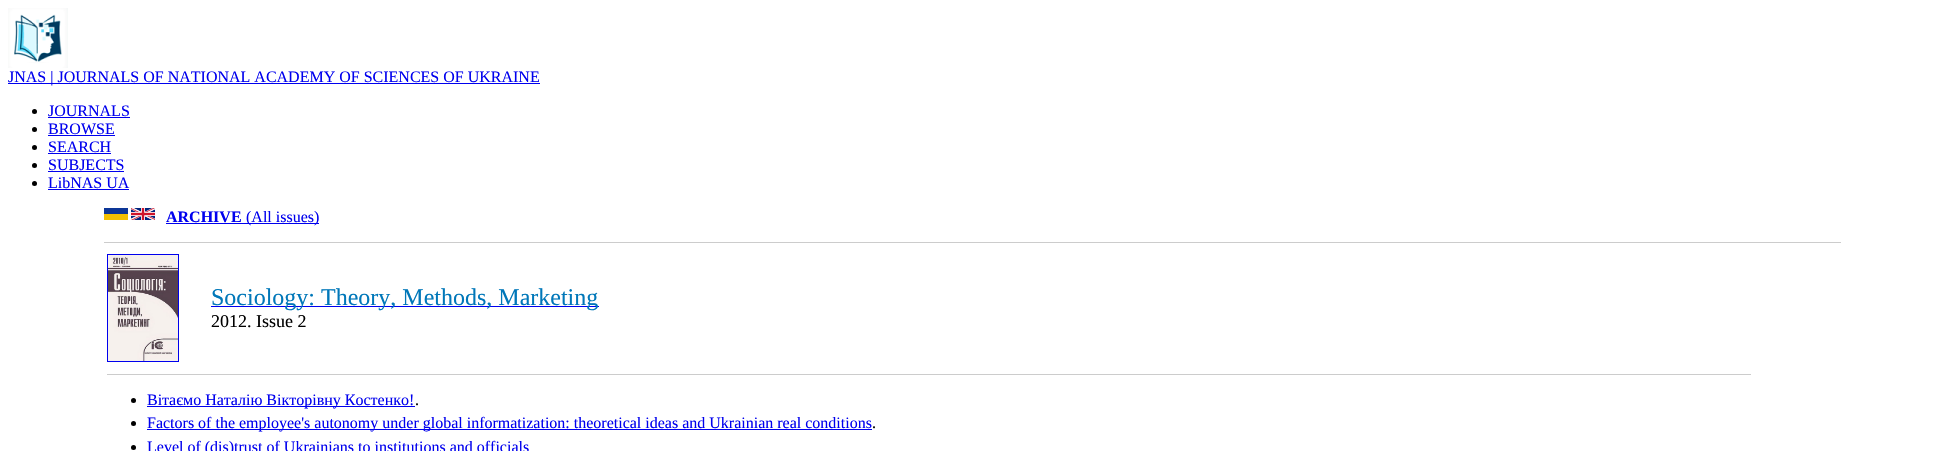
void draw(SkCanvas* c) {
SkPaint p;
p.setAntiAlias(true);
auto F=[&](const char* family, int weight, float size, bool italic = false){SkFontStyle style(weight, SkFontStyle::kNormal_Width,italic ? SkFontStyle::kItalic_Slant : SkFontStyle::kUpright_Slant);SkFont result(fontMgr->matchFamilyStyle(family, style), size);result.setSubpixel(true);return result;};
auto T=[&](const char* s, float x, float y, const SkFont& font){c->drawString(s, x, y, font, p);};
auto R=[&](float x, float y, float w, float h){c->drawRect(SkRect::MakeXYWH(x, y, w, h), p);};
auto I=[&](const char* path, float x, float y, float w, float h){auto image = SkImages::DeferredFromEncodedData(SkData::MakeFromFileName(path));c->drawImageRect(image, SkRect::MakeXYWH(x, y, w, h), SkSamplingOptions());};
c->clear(0xffffffff);
I("1.png",8,8,60,60);
p.setColor(0xff0000ee);
R(8,83,532,1);
auto f1 = F("Liberation Serif",400,16);
T("JNAS | JOURNALS OF NATIONAL ACADEMY OF SCIENCES OF UKRAINE",8,82,f1);
p.setColor(0xff000000);
c->drawCircle(34.5,111.5,2.5,p);
p.setColor(0xff0000ee);
T("JOURNALS",48,116,f1);
R(48,117,82,1);
p.setColor(0xff000000);
c->drawCircle(34.5,129.5,2.5,p);
p.setColor(0xff0000ee);
T("BROWSE",48,134,f1);
R(48,135,67,1);
p.setColor(0xff000000);
c->drawCircle(34.5,147.5,2.5,p);
p.setColor(0xff0000ee);
T("SEARCH",48,152,f1);
R(48,153,63,1);
p.setColor(0xff000000);
c->drawCircle(34.5,165.5,2.5,p);
p.setColor(0xff0000ee);
T("SUBJECTS",48,170,f1);
R(48,171,76,1);
p.setColor(0xff000000);
c->drawCircle(34.5,183.5,2.5,p);
p.setColor(0xff0000ee);
T("LibNAS UA",48,188,f1);
R(48,189,81,1);
I("2.png",104,208,24,12);
I("3.png",131,208,24,12);
auto f2 = F("Liberation Serif",700,16);
T("ARCHIVE",166,222,f2);
R(166,223,153,1);
T("(All issues)",246,222,f1);
p.setColor(0xffcccccc);
R(104,242,1737,1);
p.setStroke(true);
p.setStrokeWidth(1);
p.setColor(0xff0000ee);
c->drawRect(SkRect::MakeXYWH(107.5,254.5,71,107),p);
I("4.png",108,255,70,106);
p.setStroke(false);
R(211,306,388,1);
auto f3 = F("Liberation Serif",400,24);
p.setColor(0xff0077b9);
T("Sociology: Theory, Methods, Marketing",211,305,f3);
auto f4 = F("Liberation Serif",400,18);
p.setColor(0xff000000);
T("2012. Issue 2",211,327,f4);
p.setColor(0xffcccccc);
R(107,374,1644,1);
p.setColor(0xff000000);
c->drawCircle(133.5,400.5,2.5,p);
p.setColor(0xff0000ee);
R(147,406,268,1);
T("Вітаємо Наталію Вікторівну Костенко!",147,405,f1);
p.setColor(0xff000000);
T(".",415,405,f1);
c->drawCircle(133.5,423.5,2.5,p);
p.setColor(0xff0000ee);
R(147,429,725,1);
T("Factors of the employee's autonomy under global informatization: theoretical ideas and Ukrainian real conditions",147,428,f1);
p.setColor(0xff000000);
T(".",872,428,f1);
c->drawCircle(133.5,447.5,2.5,p);
p.setColor(0xff0000ee);
T("Level of (dis)trust of Ukrainians to institutions and officials",147,452,f1);
}
